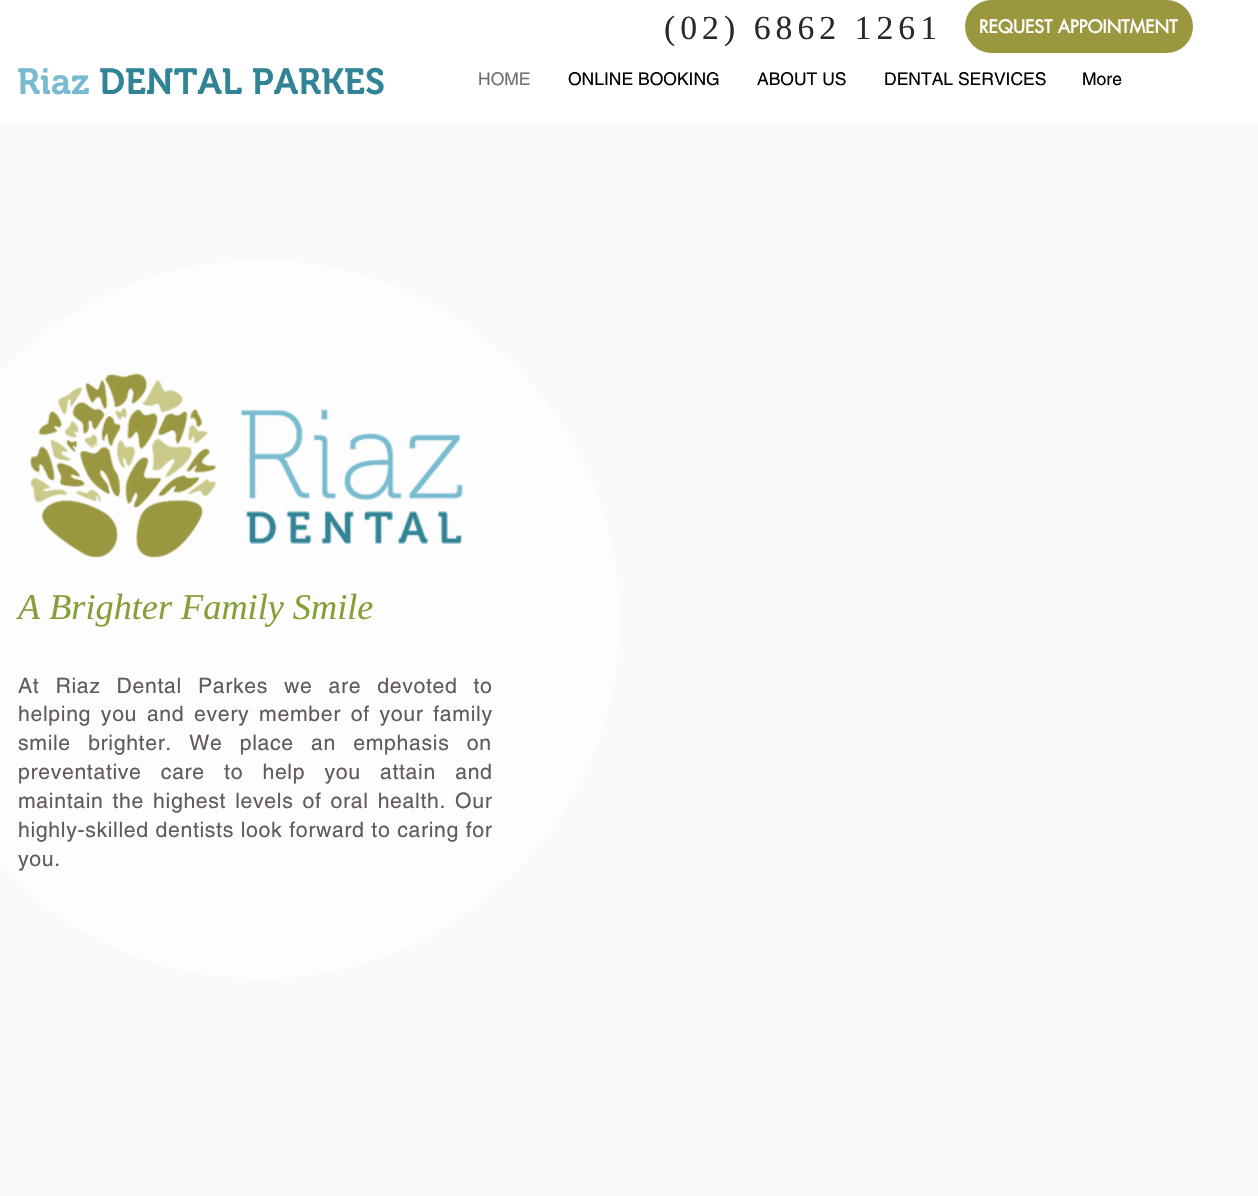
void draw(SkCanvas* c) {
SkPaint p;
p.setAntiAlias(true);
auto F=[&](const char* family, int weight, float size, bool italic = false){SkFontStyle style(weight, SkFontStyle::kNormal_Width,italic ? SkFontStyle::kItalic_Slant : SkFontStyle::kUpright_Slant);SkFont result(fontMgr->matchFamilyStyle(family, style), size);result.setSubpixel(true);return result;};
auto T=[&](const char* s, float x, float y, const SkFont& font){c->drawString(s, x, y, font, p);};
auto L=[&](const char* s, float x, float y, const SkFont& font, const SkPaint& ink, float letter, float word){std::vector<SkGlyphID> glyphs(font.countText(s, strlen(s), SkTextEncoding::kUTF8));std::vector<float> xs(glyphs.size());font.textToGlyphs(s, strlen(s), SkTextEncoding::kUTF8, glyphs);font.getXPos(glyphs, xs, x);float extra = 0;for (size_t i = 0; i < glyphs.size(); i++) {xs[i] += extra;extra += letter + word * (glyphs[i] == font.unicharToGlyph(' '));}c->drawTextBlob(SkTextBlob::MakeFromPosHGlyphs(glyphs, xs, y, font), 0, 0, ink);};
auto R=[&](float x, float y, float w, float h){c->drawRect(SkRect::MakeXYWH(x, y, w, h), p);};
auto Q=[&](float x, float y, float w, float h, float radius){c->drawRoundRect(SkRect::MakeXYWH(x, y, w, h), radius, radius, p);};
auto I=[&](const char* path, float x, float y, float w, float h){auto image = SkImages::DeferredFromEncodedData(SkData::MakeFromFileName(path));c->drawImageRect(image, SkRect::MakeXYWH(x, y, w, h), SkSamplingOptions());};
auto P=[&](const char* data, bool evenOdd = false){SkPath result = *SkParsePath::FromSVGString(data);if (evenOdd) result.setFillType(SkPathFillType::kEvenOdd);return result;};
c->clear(0xffffffff);
auto f1 = F("Liberation Serif",400,33.75);
p.setColor(0xff292929);
L("(02) 6862 1261",664,39,f1,p,5,0);
p.setColor(0xff9b973f);
Q(965,0,228,53,26.5);
auto f2 = F("futura",700,17.5);
p.setColor(0xffffffff);
T("REQUEST APPOINTMENT",979,33,f2);
auto f3 = F("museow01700",600,36.25);
p.setColor(0xff78bacf);
T("Riaz",17,94,f3);
p.setColor(0xff318496);
T("DENTAL PARKES",99,94,f3);
auto f4 = F("helvetica",400,17.5);
p.setColor(0xff717070);
T("HOME",478,85,f4);
p.setColor(0xff000000);
T("ONLINE BOOKING",568,85,f4);
T("ABOUT US",757,85,f4);
T("DENTAL SERVICES",884,85,f4);
T("More",1082,85,f4);
p.setColor(0xfffafafa);
R(0,123,1258,1073);
p.setColor(0xfffdfdfd);
c->drawPath(P("M620 619c0 199-161 360-359 360c-199 0-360-161-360-360c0-198 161-359 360-359c198 0 359 161 359 359z"),p);
I("1.png",30,373,433,185);
auto f5 = F("Liberation Serif",400,36.25,true);
p.setColor(0xff859e36);
T("A Brighter Family Smile",18,619,f5);
auto f6 = F("helvetica",400,21.25);
p.setColor(0xff635a5a);
L("At Riaz Dental Parkes we are devoted to",18,693,f6,p,.65,9.5);
L("helping you and every member of your family",18,721,f6,p,.65,3.25);
L("smile brighter. We place an emphasis on",18,750,f6,p,.65,10.75);
L("preventative care to help you attain and",18,779,f6,p,.65,12.75);
L("maintain the highest levels of oral health. Our",18,808,f6,p,.65,2.5);
L("highly-skilled dentists look forward to caring for",18,837,f6,p,.65,.25);
L("you.",18,866,f6,p,.65,0);
}
